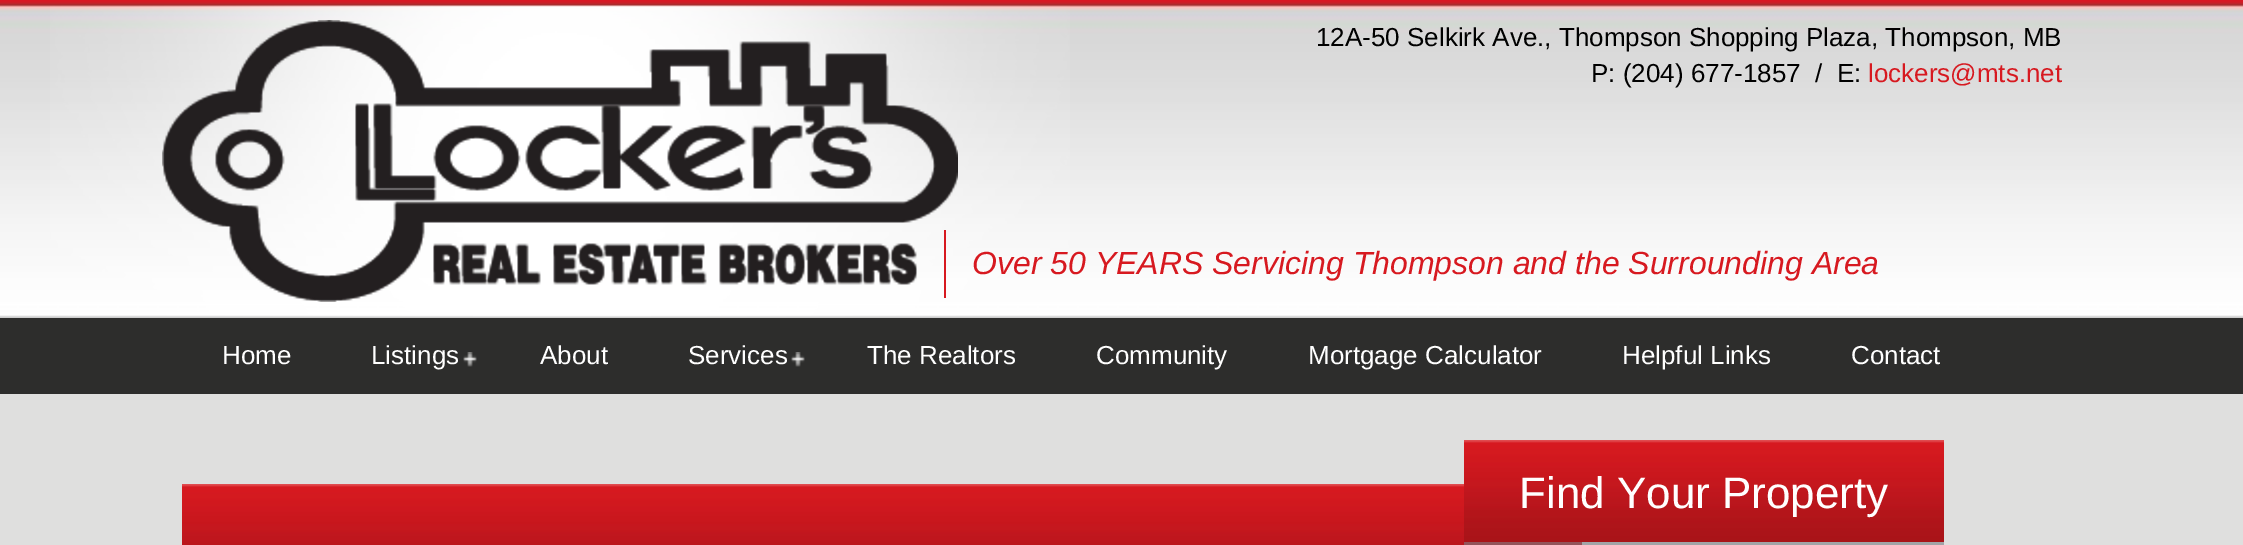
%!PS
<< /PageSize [2243 545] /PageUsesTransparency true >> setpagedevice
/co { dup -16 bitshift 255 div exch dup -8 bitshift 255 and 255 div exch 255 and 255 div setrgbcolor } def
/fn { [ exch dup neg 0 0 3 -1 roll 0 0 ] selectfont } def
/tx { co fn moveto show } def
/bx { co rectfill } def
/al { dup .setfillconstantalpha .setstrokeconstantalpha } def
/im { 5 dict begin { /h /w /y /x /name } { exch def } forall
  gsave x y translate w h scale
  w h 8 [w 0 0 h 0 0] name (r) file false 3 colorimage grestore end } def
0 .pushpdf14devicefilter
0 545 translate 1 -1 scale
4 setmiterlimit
0 0 2243 545 16#DFDFDE bx
(media/1.raw) 0 0 2243 318 im
(media/2.raw) 50 5 1020 312 im
(media/3.raw) 162 20 796 282 im
944 230 2 68 16#D71920 bx
0 318 2243 76 16#2D2D2C bx
(media/4.raw) 463 352 14 15 im
(media/4.raw) 791 352 14 15 im
(media/6.raw) 182 484 1400 61 im
0.6 al
1464 542 480 3 16#797D83 bx
1 al
(media/5.raw) 1464 440 480 102 im
(12A-50 Selkirk Ave., Thompson Shopping Plaza, Thompson, MB) 1316 46 /LiberationSans-Regular 26 16#000000 tx
(P: \(204\) 677-1857  /  E:) 1591 82 /LiberationSans-Regular 26 16#000000 tx
(lockers@mts.net) 1868 82 /LiberationSans-Regular 26 16#D71920 tx
(Over 50 YEARS Servicing Thompson and the Surrounding Area) 972 274 /LiberationSans-Italic 32 16#D71920 tx
(Home) 222 364 /LiberationSans-Regular 26 16#FFFFFF tx
(Listings) 371 364 /LiberationSans-Regular 26 16#FFFFFF tx
(About) 540 364 /LiberationSans-Regular 26 16#FFFFFF tx
(Services) 688 364 /LiberationSans-Regular 26 16#FFFFFF tx
(The Realtors) 867 364 /LiberationSans-Regular 26 16#FFFFFF tx
(Community) 1096 364 /LiberationSans-Regular 26 16#FFFFFF tx
(Mortgage Calculator) 1308 364 /LiberationSans-Regular 26 16#FFFFFF tx
(Helpful Links) 1622 364 /LiberationSans-Regular 26 16#FFFFFF tx
(Contact) 1851 364 /LiberationSans-Regular 26 16#FFFFFF tx
(Find Your Property) 1519 508 /LiberationSans-Regular 44 16#FFFFFF tx
.poppdf14devicefilter showpage
